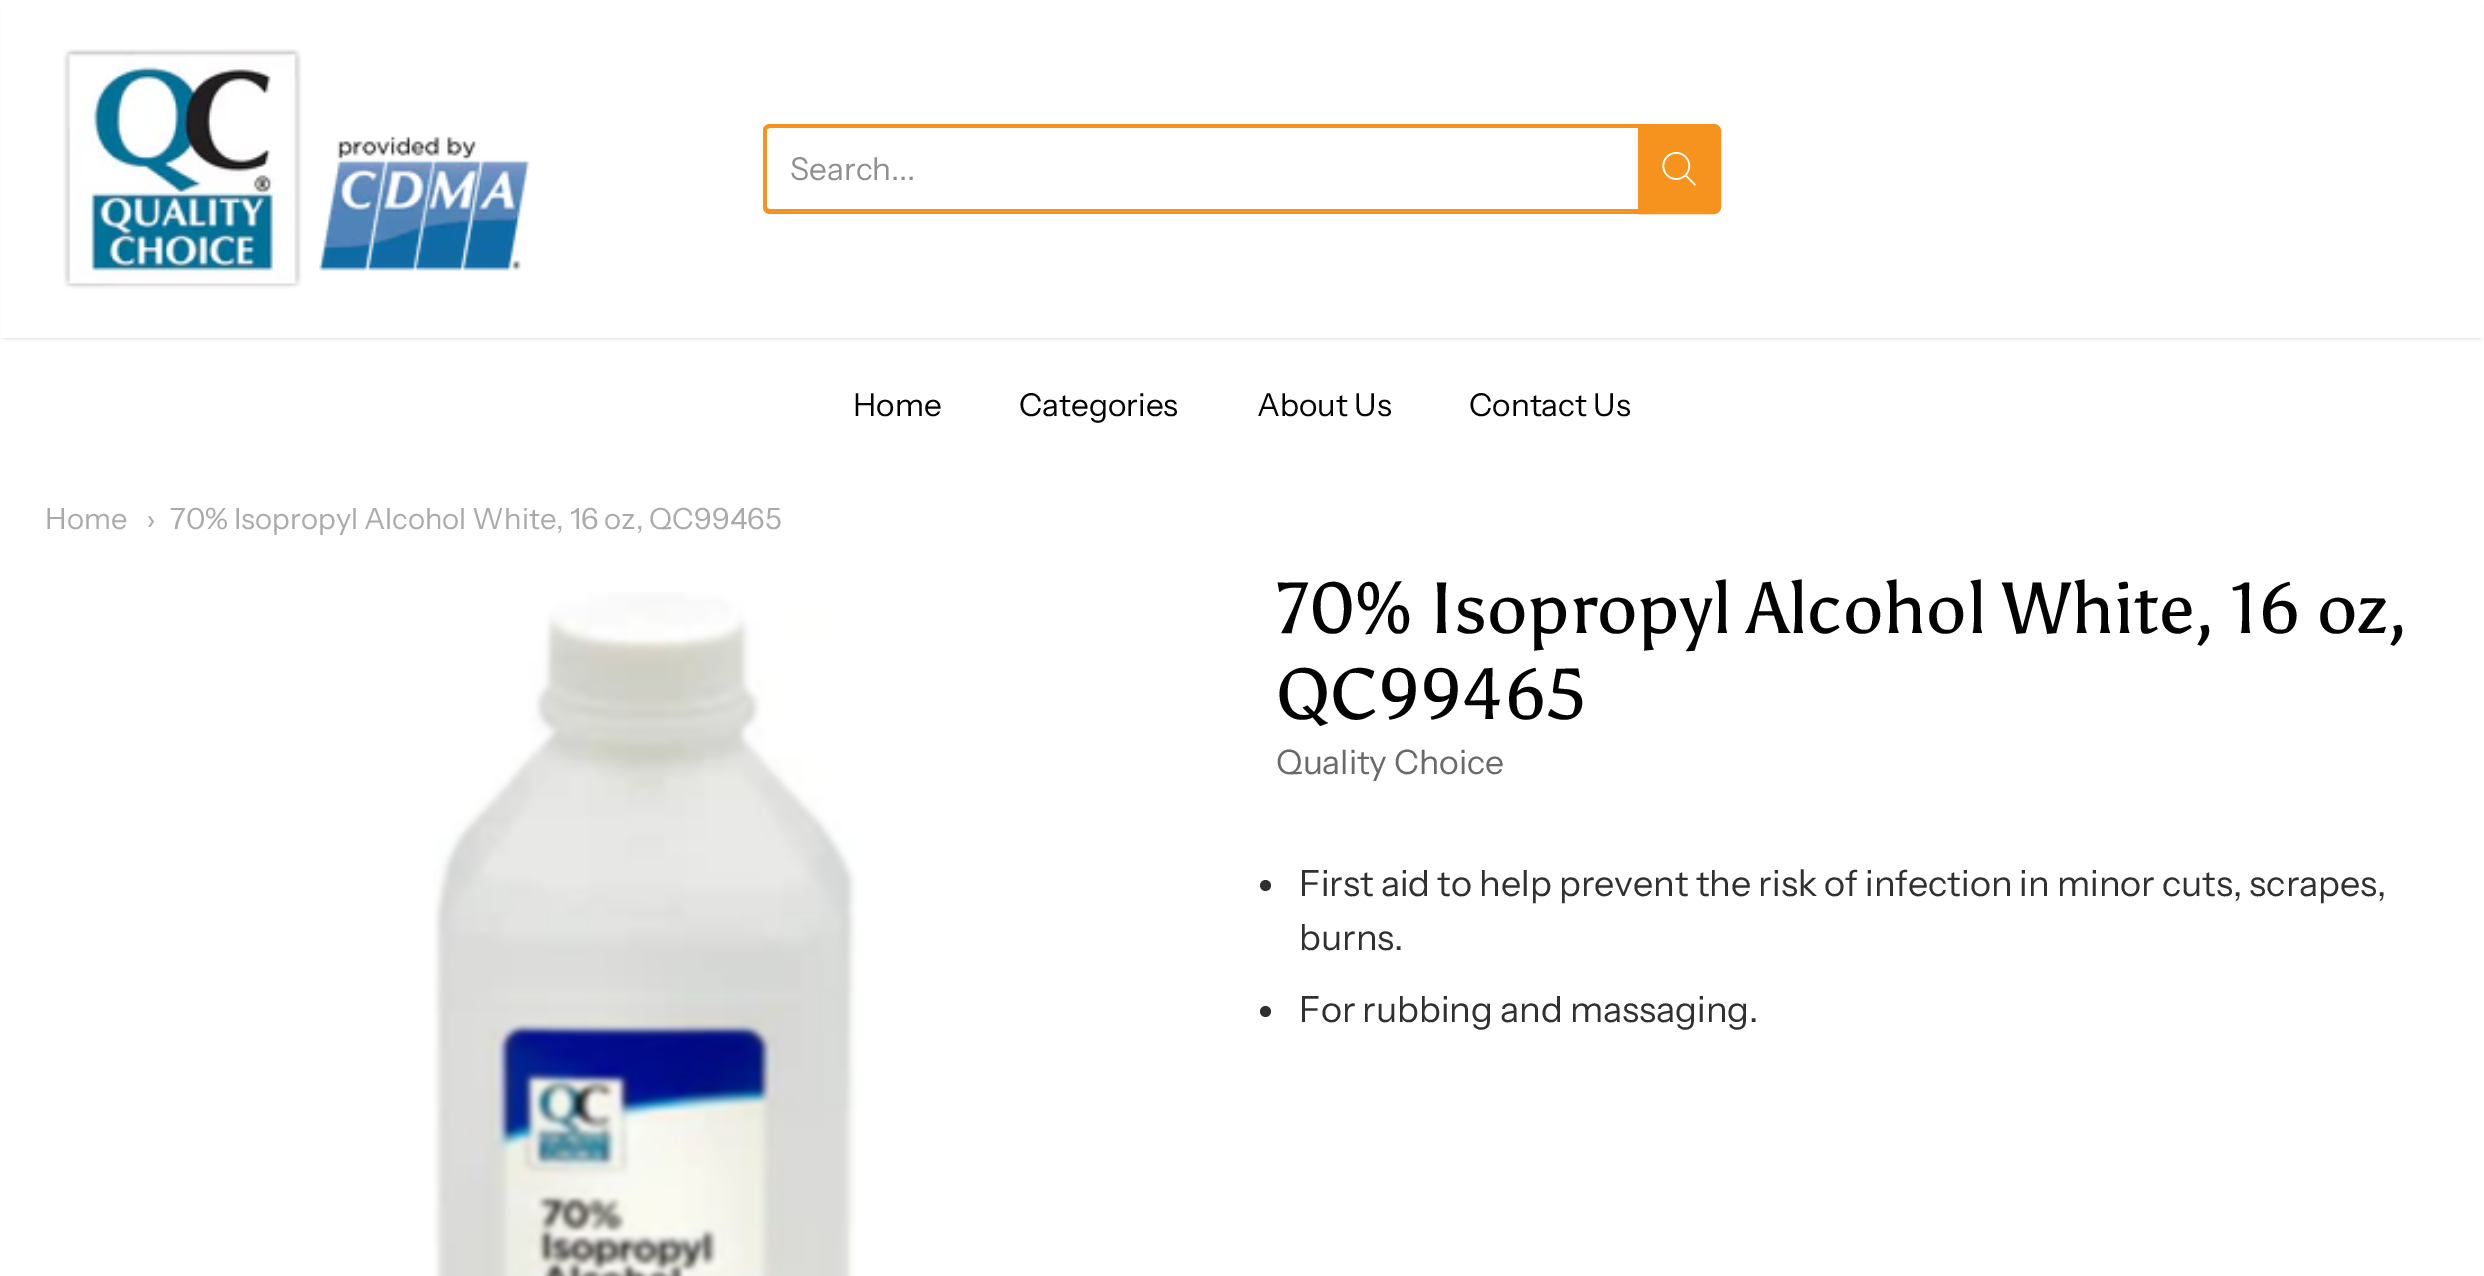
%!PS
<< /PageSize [2484 1276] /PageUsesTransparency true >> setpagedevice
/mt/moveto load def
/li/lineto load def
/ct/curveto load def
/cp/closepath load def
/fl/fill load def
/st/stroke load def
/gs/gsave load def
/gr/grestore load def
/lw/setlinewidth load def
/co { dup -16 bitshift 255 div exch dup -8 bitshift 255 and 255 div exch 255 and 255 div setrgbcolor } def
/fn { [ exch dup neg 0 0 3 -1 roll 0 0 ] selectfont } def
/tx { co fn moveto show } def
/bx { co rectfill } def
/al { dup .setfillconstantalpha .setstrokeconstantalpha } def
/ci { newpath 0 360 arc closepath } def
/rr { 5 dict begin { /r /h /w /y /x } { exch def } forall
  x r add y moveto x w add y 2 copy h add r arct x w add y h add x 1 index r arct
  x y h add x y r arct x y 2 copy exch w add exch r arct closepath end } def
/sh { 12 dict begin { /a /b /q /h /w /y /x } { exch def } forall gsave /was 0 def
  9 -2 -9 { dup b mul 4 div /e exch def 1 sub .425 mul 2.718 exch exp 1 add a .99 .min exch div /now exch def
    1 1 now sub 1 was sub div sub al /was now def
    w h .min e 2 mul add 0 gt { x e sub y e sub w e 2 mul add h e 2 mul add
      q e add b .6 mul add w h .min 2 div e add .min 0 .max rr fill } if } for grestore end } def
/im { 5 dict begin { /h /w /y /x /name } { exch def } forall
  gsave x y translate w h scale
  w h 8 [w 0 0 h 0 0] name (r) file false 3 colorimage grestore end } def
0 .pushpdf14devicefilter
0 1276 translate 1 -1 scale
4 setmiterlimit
0 0 2484 1276 16#FFFFFF bx
16#000000 co
5 9 2475 329 0 2 .2 sh
2 6 2481 332 16#FFFFFF bx
(media/1.raw) 63 49 467 240 im
16#F6921E co
770 124 mt 1638 124 li 1638 214 li 770 214 li 766 214 763 211 763 207 ct 763 130 li 763 127 766 124 770 124 ct cp 770 128 mt 1638 128 li 1638 209 li 770 209 li 768 209 767 208 767 207 ct 767 130 li 767 129 768 128 770 128 ct cp eofill
1640.5 126.5 mt 1714 126.5 li 1716.5 126.5 1718.5 128.5 1718.5 131 ct 1718.5 207 li 1718.5 209.5 1716.5 211.5 1714 211.5 ct 1640.5 211.5 li cp gs fl gr
5 lw
st
(media/2.raw) 1662 152 34 34 im
(media/3.raw) 433 592 424 684 im
16#303030 co
1265.5 885.5 5.5 ci fl
1265.5 1011.5 5.5 ci fl
(Search...) 790 180 /InstrumentSans-Regular 31.5 16#8F8F8F tx
(Home) 853 416 /InstrumentSans-Regular 31.5 16#030303 tx
(Categories) 1019 416 /InstrumentSans-Regular 31.5 16#030303 tx
(About Us) 1257 416 /InstrumentSans-Regular 31.5 16#030303 tx
(Contact Us) 1469 416 /InstrumentSans-Regular 31.5 16#030303 tx
(Home) 45 529 /InstrumentSans-Regular 29.25 16#A9AAAA tx
(›) 146 529 /InstrumentSans-Regular 29.25 16#A9AAAA tx
(70% Isopropyl Alcohol White, 16 oz, QC99465) 170 529 /InstrumentSans-Regular 29.25 16#A9AAAA tx
(70% Isopropyl Alcohol White, 16 oz,) 1276 633 /Asul-Regular 72 16#030303 tx
(QC99465) 1276 719 /Asul-Regular 72 16#030303 tx
(Quality Choice) 1276 774 /InstrumentSans-Regular 33.75 16#696969 tx
(First aid to help prevent the risk of infection in minor cuts, scrapes,) 1299 896 /InstrumentSans-Regular 36 16#303030 tx
(burns.) 1299 950 /InstrumentSans-Regular 36 16#303030 tx
(For rubbing and massaging.) 1299 1022 /InstrumentSans-Regular 36 16#303030 tx
.poppdf14devicefilter showpage
